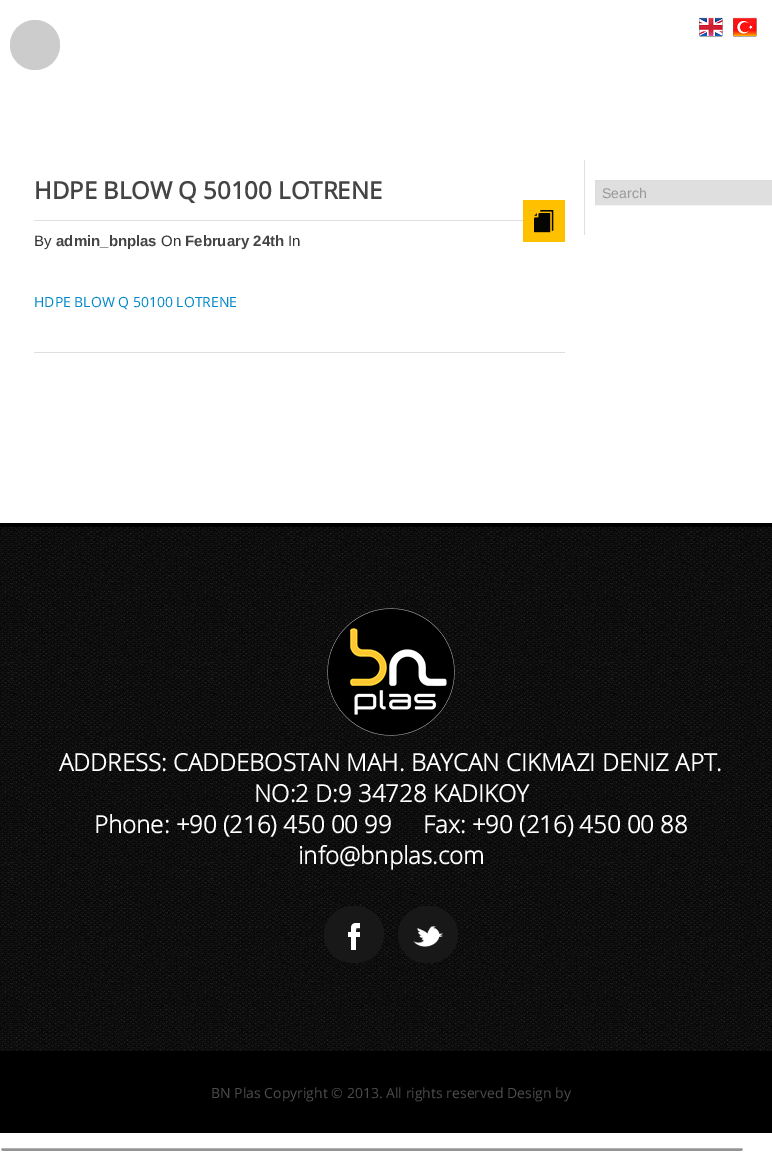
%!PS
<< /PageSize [772 1154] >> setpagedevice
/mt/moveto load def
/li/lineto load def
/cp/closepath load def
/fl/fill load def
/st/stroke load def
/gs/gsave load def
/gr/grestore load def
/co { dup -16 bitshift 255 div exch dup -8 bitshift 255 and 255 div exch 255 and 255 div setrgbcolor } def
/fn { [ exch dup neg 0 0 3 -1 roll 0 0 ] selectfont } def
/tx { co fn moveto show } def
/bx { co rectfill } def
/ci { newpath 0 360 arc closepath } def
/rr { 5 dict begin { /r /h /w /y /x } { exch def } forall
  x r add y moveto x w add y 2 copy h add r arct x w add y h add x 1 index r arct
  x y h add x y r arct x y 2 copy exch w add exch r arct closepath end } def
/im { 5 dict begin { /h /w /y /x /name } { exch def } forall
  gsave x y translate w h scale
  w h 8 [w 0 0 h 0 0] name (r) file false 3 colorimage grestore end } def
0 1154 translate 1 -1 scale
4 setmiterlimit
0 0 772 1154 16#FFFFFF bx
16#CCCCCC co
35 45 25 ci fl
(media/1.raw) 699 17 24 20 im
(media/2.raw) 733 17 24 20 im
34 220 489 1 16#DFDFDF bx
523 200 42 42 16#FFC000 bx
(media/3.raw) 534 210 20 23 im
34 352 531 1 16#DFDFDF bx
584 160 1 75 16#DFDFDF bx
595.5 180.5 mt 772.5 180.5 li 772.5 204.5 li 595.5 204.5 li cp gs fl gr
16#DDDDDD co
st
(media/4.raw) 0 527 772 524 im
0 523 772 4 16#000000 bx
0 1051 772 82 16#000000 bx
(media/5.raw) 327 608 128 128 im
16#181818 co
324 906 60 57 28.5 rr fl
398 906 60 57 28.5 rr fl
(media/6.raw) 348 923 12 27 im
(media/7.raw) 413 926 30 21 im
16#949494 co
.5 1147.5 743 4 2 rr gs fl gr
16#FFFFFF co
st
(HDPE BLOW Q 50100 LOTRENE) 34 199 /OpenSans-Bold 24 16#444444 tx
(By) 34 246 /LiberationSans-Regular 15 16#333333 tx
(admin_bnplas) 56 246 /LiberationSans-Bold 15 16#444444 tx
(On) 161 246 /LiberationSans-Regular 15 16#333333 tx
(February 24th) 185 246 /LiberationSans-Bold 15 16#444444 tx
(In) 288 246 /LiberationSans-Regular 15 16#333333 tx
(HDPE BLOW Q 50100 LOTRENE) 34 307 /OpenSans-Regular 14 16#0088CC tx
(Search) 602 198 /LiberationSans-Regular 14 16#999999 tx
(ADDRESS: CADDEBOSTAN MAH. BAYCAN CIKMAZI DENIZ APT.) 59 771 /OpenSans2-Bold 24 16#FFFFFF tx
(NO:2 D:9 34728 KADIKOY) 254 802 /OpenSans2-Bold 24 16#FFFFFF tx
(Phone: +90 \(216\) 450 00 99) 94 833 /OpenSans2-Bold 24 16#FFFFFF tx
(Fax: +90 \(216\) 450 00 88) 423 833 /OpenSans2-Bold 24 16#FFFFFF tx
(info@bnplas.com) 298 864 /OpenSans2-Bold 24 16#FFFFFF tx
(BN Plas Copyright © 2013. All rights reserved Design by) 211 1098 /OpenSans-Regular 14 16#4D4D4D tx
showpage
